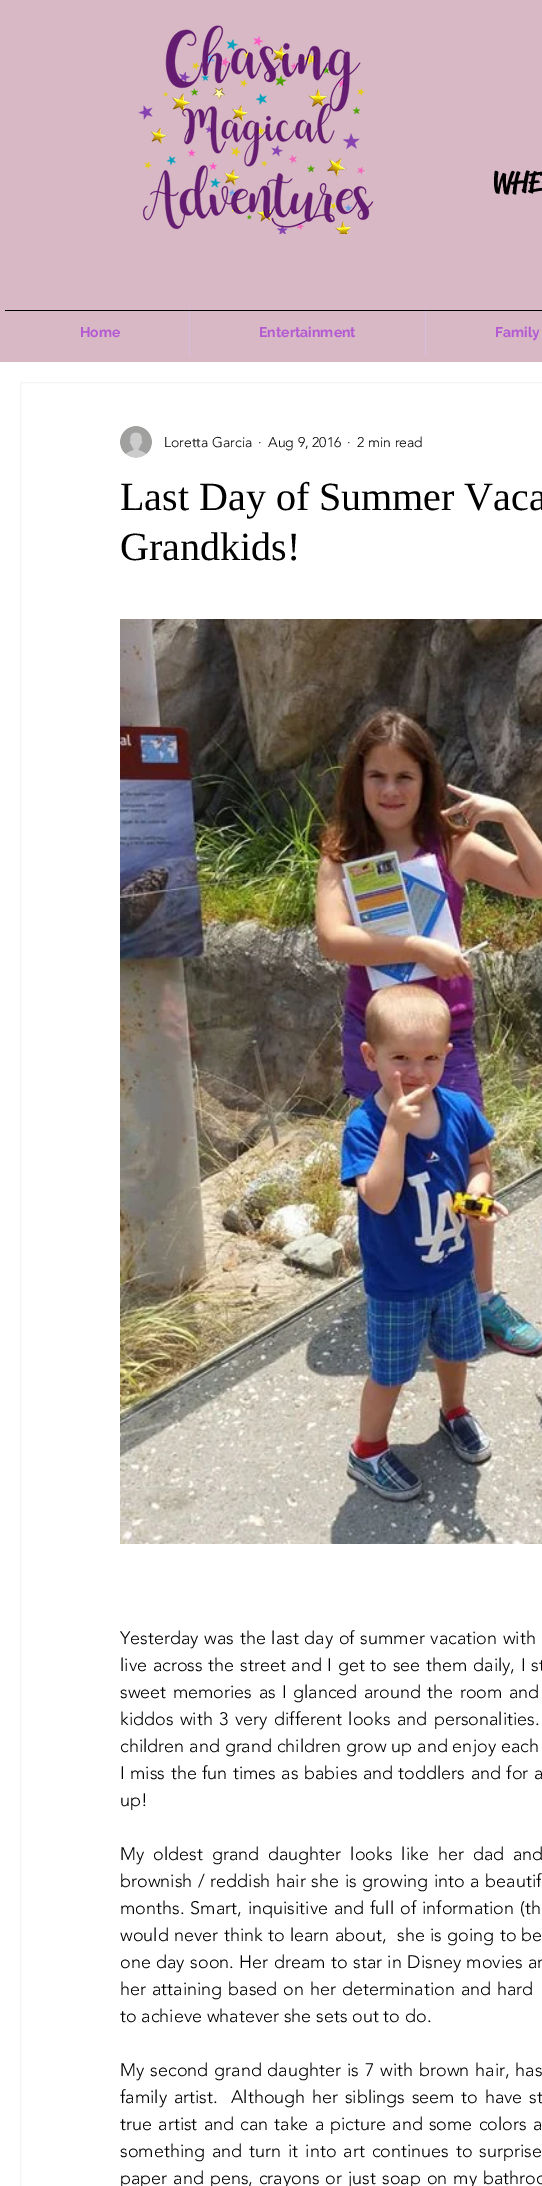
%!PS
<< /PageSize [542 2186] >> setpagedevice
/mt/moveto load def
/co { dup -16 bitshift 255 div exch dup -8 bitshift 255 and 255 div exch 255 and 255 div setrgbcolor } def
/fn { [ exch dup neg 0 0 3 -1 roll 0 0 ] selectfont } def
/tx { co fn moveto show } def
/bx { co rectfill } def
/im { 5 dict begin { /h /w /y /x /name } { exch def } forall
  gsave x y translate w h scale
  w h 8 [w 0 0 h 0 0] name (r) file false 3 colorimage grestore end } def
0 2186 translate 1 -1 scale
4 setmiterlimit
0 0 542 2186 16#D9B8C6 bx
(media/1.raw) 138 25 236 209 im
189 308 1 48 16#D8BDE2 bx
425 308 1 48 16#D8BDE2 bx
5 310 537 1 16#000000 bx
0 362 542 1824 16#FFFFFF bx
16#F5F5F5 co
20.5 382.5 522 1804 rectstroke
(media/2.raw) 120 426 32 32 im
(media/3.raw) 120 619 422 925 im
(WHE) 492 192 /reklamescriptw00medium-Medium 29 16#000000 tx
(Home) 80 337 /Raleway-Bold 14 16#B45AD3 tx
(Entertainment) 259 337 /Raleway-Bold 14 16#B45AD3 tx
(Family) 495 337 /Raleway-Bold 14 16#B45AD3 tx
(Loretta Garcia) 164 447 /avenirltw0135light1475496-Light 14 16#000000 tx
(·) 258 447 /avenirltw0135light1475496-Light 14 16#000000 tx
(Aug 9, 2016) 268 447 /avenirltw0135light1475496-Light 14 16#000000 tx
(·) 347 447 /avenirltw0135light1475496-Light 14 16#000000 tx
(2 min read) 357 447 /avenirltw0135light1475496-Light 14 16#000000 tx
(Last Day of Summer Vaca) 120 510 /LiberationSerif-Regular 40 16#000000 tx
(Grandkids!) 120 560 /LiberationSerif-Regular 40 16#000000 tx
/avenirltw0135light1475496-Light 18 fn
120 1644 mt 1 0 32 (Yesterday was the last day of summer vacation with) widthshow
120 1671 mt 1 0 32 (live across the street and I get to see them daily, I st) widthshow
120 1698 mt 1.75 0 32 (sweet memories as I glanced around the room and) widthshow
120 1725 mt 1.75 0 32 (kiddos with 3 very different looks and personalities.) widthshow
120 1752 mt .25 0 32 (children and grand children grow up and enjoy each) widthshow
120 1779 mt .75 0 32 (I miss the fun times as babies and toddlers and for a) widthshow
(up!) 120 1806 /avenirltw0135light1475496-Light 18 16#000000 tx
120 1860 mt 4.25 0 32 (My oldest grand daughter looks like her dad and) widthshow
120 1887 mt 1 0 32 (brownish / reddish hair she is growing into a beautif) widthshow
120 1914 mt 1.25 0 32 (months. Smart, inquisitive and full of information \(th) widthshow
120 1941 mt .6 0 32 (would never think to learn about,  she is going to be) widthshow
120 1968 mt .75 0 32 (one day soon. Her dream to star in Disney movies an) widthshow
120 1995 mt 1.25 0 32 (her attaining based on her determination and hard) widthshow
(to achieve whatever she sets out to do.) 120 2022 /avenirltw0135light1475496-Light 18 16#000000 tx
120 2076 mt 1.25 0 32 (My second grand daughter is 7 with brown hair, has) widthshow
120 2103 mt 2 0 32 (family artist.  Although her siblings seem to have st) widthshow
120 2130 mt 1.5 0 32 (true artist and can take a picture and some colors a) widthshow
120 2157 mt 2.25 0 32 (something and turn it into art continues to surprise) widthshow
120 2184 mt 1.25 0 32 (paper and pens, crayons or just soap on my bathroo) widthshow
showpage
